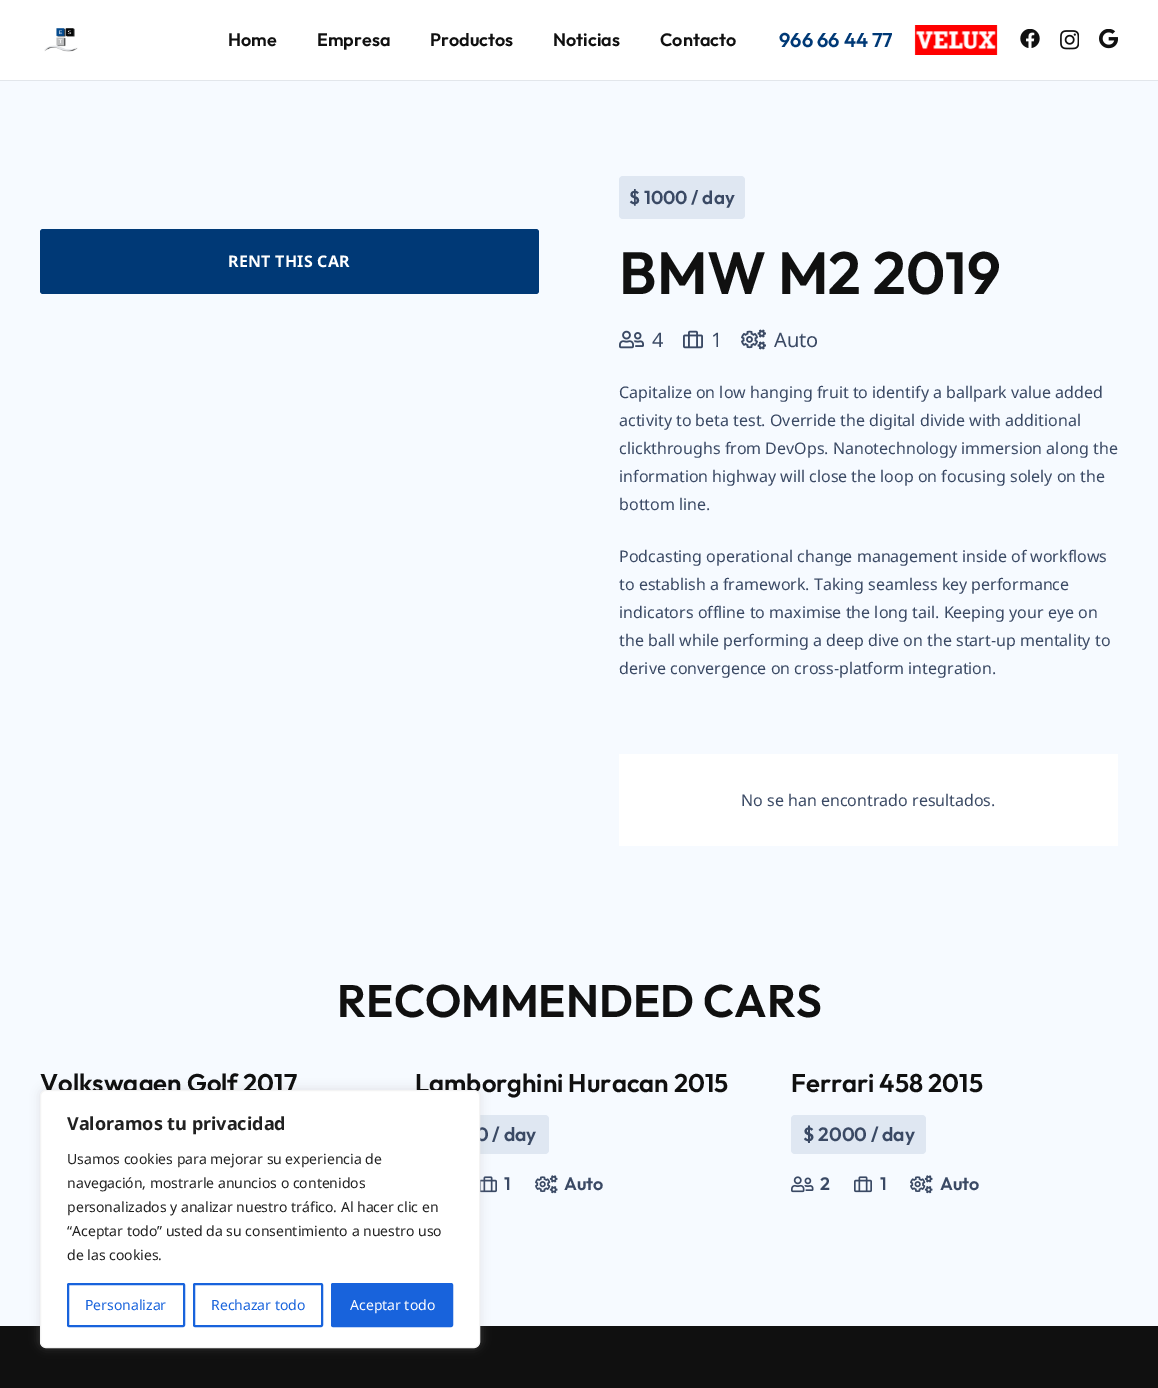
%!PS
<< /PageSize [1158 1388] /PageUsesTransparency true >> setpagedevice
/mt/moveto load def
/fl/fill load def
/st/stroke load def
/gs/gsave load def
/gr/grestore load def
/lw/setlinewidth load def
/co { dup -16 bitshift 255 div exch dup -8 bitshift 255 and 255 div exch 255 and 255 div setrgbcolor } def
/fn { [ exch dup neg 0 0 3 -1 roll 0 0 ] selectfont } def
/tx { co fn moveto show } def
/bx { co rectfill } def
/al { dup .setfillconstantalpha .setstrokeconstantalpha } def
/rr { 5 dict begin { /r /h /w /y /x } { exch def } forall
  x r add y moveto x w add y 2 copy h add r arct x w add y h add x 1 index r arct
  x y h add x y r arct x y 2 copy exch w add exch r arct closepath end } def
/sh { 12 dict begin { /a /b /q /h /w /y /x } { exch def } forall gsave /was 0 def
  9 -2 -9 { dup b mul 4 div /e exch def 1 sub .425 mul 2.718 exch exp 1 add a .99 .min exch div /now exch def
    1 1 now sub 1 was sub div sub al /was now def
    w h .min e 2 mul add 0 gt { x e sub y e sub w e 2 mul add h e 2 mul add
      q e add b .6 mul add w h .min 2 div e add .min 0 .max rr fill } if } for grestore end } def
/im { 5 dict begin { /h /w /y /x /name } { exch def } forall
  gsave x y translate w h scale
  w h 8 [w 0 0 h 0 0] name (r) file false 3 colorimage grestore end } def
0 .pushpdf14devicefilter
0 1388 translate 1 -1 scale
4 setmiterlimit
0 0 1158 1388 16#F6FAFF bx
0 80 1158 1 16#E2E6EB bx
0 0 1158 80 16#FFFFFF bx
(media/1.raw) 44 28 34 24 im
(media/2.raw) 914 25 84 30 im
(media/3.raw) 1020 29 20 19 im
(media/4.raw) 1060 30 19 20 im
(media/5.raw) 1099 29 19 20 im
16#003976 co
40 229 499 65 3 rr fl
16#DFE7F2 co
619 176 126 43 4 rr fl
(media/6.raw) 619 330 25 19 im
(media/7.raw) 683 330 20 19 im
(media/8.raw) 741 329 25 21 im
619 754 499 92 16#FFFFFF bx
16#DFE7F2 co
415 1115 134 39 4 rr fl
(media/9.raw) 480 1176 17 17 im
(media/10.raw) 535 1175 23 19 im
791 1115 135 39 4 rr fl
(media/11.raw) 791 1176 23 17 im
(media/12.raw) 854 1176 18 17 im
(media/10.raw) 910 1175 23 19 im
0 1326 1158 62 16#101010 bx
16#ACABAB co
40 1089 440 258 6 5 .3 sh
(Home) 228 46 /Outfit-Thin 18 16#101010 tx
(Empresa) 317 46 /Outfit-Thin 18 16#101010 tx
(Productos) 430 46 /Outfit-Thin 18 16#101010 tx
(Noticias) 553 46 /Outfit-Thin 18 16#101010 tx
(Contacto) 660 46 /Outfit-Thin 18 16#101010 tx
(966 66 44 77) 779 47 /Outfit-Thin 20 16#003976 tx
/NotoSans-Bold 16 fn
16#FFFFFF co
228 267 mt .25 0 (RENT THIS CAR) ashow
($ 1000 / day) 629 204 /Outfit-Thin 18.75 16#3A4964 tx
(BMW M2 2019) 619 294 /Outfit-Thin 59.5 16#101010 tx
(4) 652 347 /NotoSans-Regular 20 16#3A4964 tx
(1) 711 347 /NotoSans-Regular 20 16#3A4964 tx
(Auto) 774 347 /NotoSans-Regular 20 16#3A4964 tx
(Capitalize on low hanging fruit to identify a ballpark value added) 619 398 /NotoSans-Regular 16 16#3A4964 tx
(activity to beta test. Override the digital divide with additional) 619 426 /NotoSans-Regular 16 16#3A4964 tx
(clickthroughs from DevOps. Nanotechnology immersion along the) 619 454 /NotoSans-Regular 16 16#3A4964 tx
(information highway will close the loop on focusing solely on the) 619 482 /NotoSans-Regular 16 16#3A4964 tx
(bottom line.) 619 510 /NotoSans-Regular 16 16#3A4964 tx
(Podcasting operational change management inside of workflows) 619 562 /NotoSans-Regular 16 16#3A4964 tx
(to establish a framework. Taking seamless key performance) 619 590 /NotoSans-Regular 16 16#3A4964 tx
(indicators offline to maximise the long tail. Keeping your eye on) 619 618 /NotoSans-Regular 16 16#3A4964 tx
(the ball while performing a deep dive on the start-up mentality to) 619 646 /NotoSans-Regular 16 16#3A4964 tx
(derive convergence on cross-platform integration.) 619 674 /NotoSans-Regular 16 16#3A4964 tx
(No se han encontrado resultados.) 741 806 /NotoSans-Regular 16 16#3A4964 tx
(RECOMMENDED CARS) 337 1017 /Outfit-Thin 45.5 16#101010 tx
(Volkswagen Golf 2017) 40 1092 /Outfit-Thin 25.6 16#101010 tx
(Lamborghini Huracan 2015) 415 1092 /Outfit-Thin 25.6 16#101010 tx
(0 / day) 476 1141 /Outfit-Thin 19.25 16#3A4964 tx
(1) 504 1190 /Outfit-Thin 18 16#3A4964 tx
(Auto) 564 1190 /Outfit-Thin 18 16#3A4964 tx
(Ferrari 458 2015) 791 1092 /Outfit-Thin 25.6 16#101010 tx
($ 2000 / day) 803 1141 /Outfit-Thin 19.25 16#3A4964 tx
(2) 820 1190 /Outfit-Thin 18 16#3A4964 tx
(1) 880 1190 /Outfit-Thin 18 16#3A4964 tx
(Auto) 940 1190 /Outfit-Thin 18 16#3A4964 tx
16#FFFFFF co
40.5 1090.5 439 257 5.5 rr gs fl gr
16#F4F4F4 co
st
(Valoramos tu privacidad) 67 1130 /NotoSans-Bold 18 16#212121 tx
(Usamos cookies para mejorar su experiencia de) 67 1164 /NotoSans-Regular 14 16#212121 tx
(navegación, mostrarle anuncios o contenidos) 67 1188 /NotoSans-Regular 14 16#212121 tx
(personalizados y analizar nuestro tráfico. Al hacer clic en) 67 1212 /NotoSans-Regular 14 16#212121 tx
(“Aceptar todo” usted da su consentimiento a nuestro uso) 67 1236 /NotoSans-Regular 14 16#212121 tx
(de las cookies.) 67 1260 /NotoSans-Regular 14 16#212121 tx
16#1863DC co
2 lw
68 1284 116 42 1 rr st
(Personalizar) 85 1310 /NotoSans-Regular 14 16#1863DC tx
194 1284 128 42 1 rr st
(Rechazar todo) 211 1310 /NotoSans-Regular 14 16#1863DC tx
332 1284 120 42 1 rr gs fl gr
st
(Aceptar todo) 350 1310 /NotoSans-Regular 14 16#FFFFFF tx
.poppdf14devicefilter showpage
